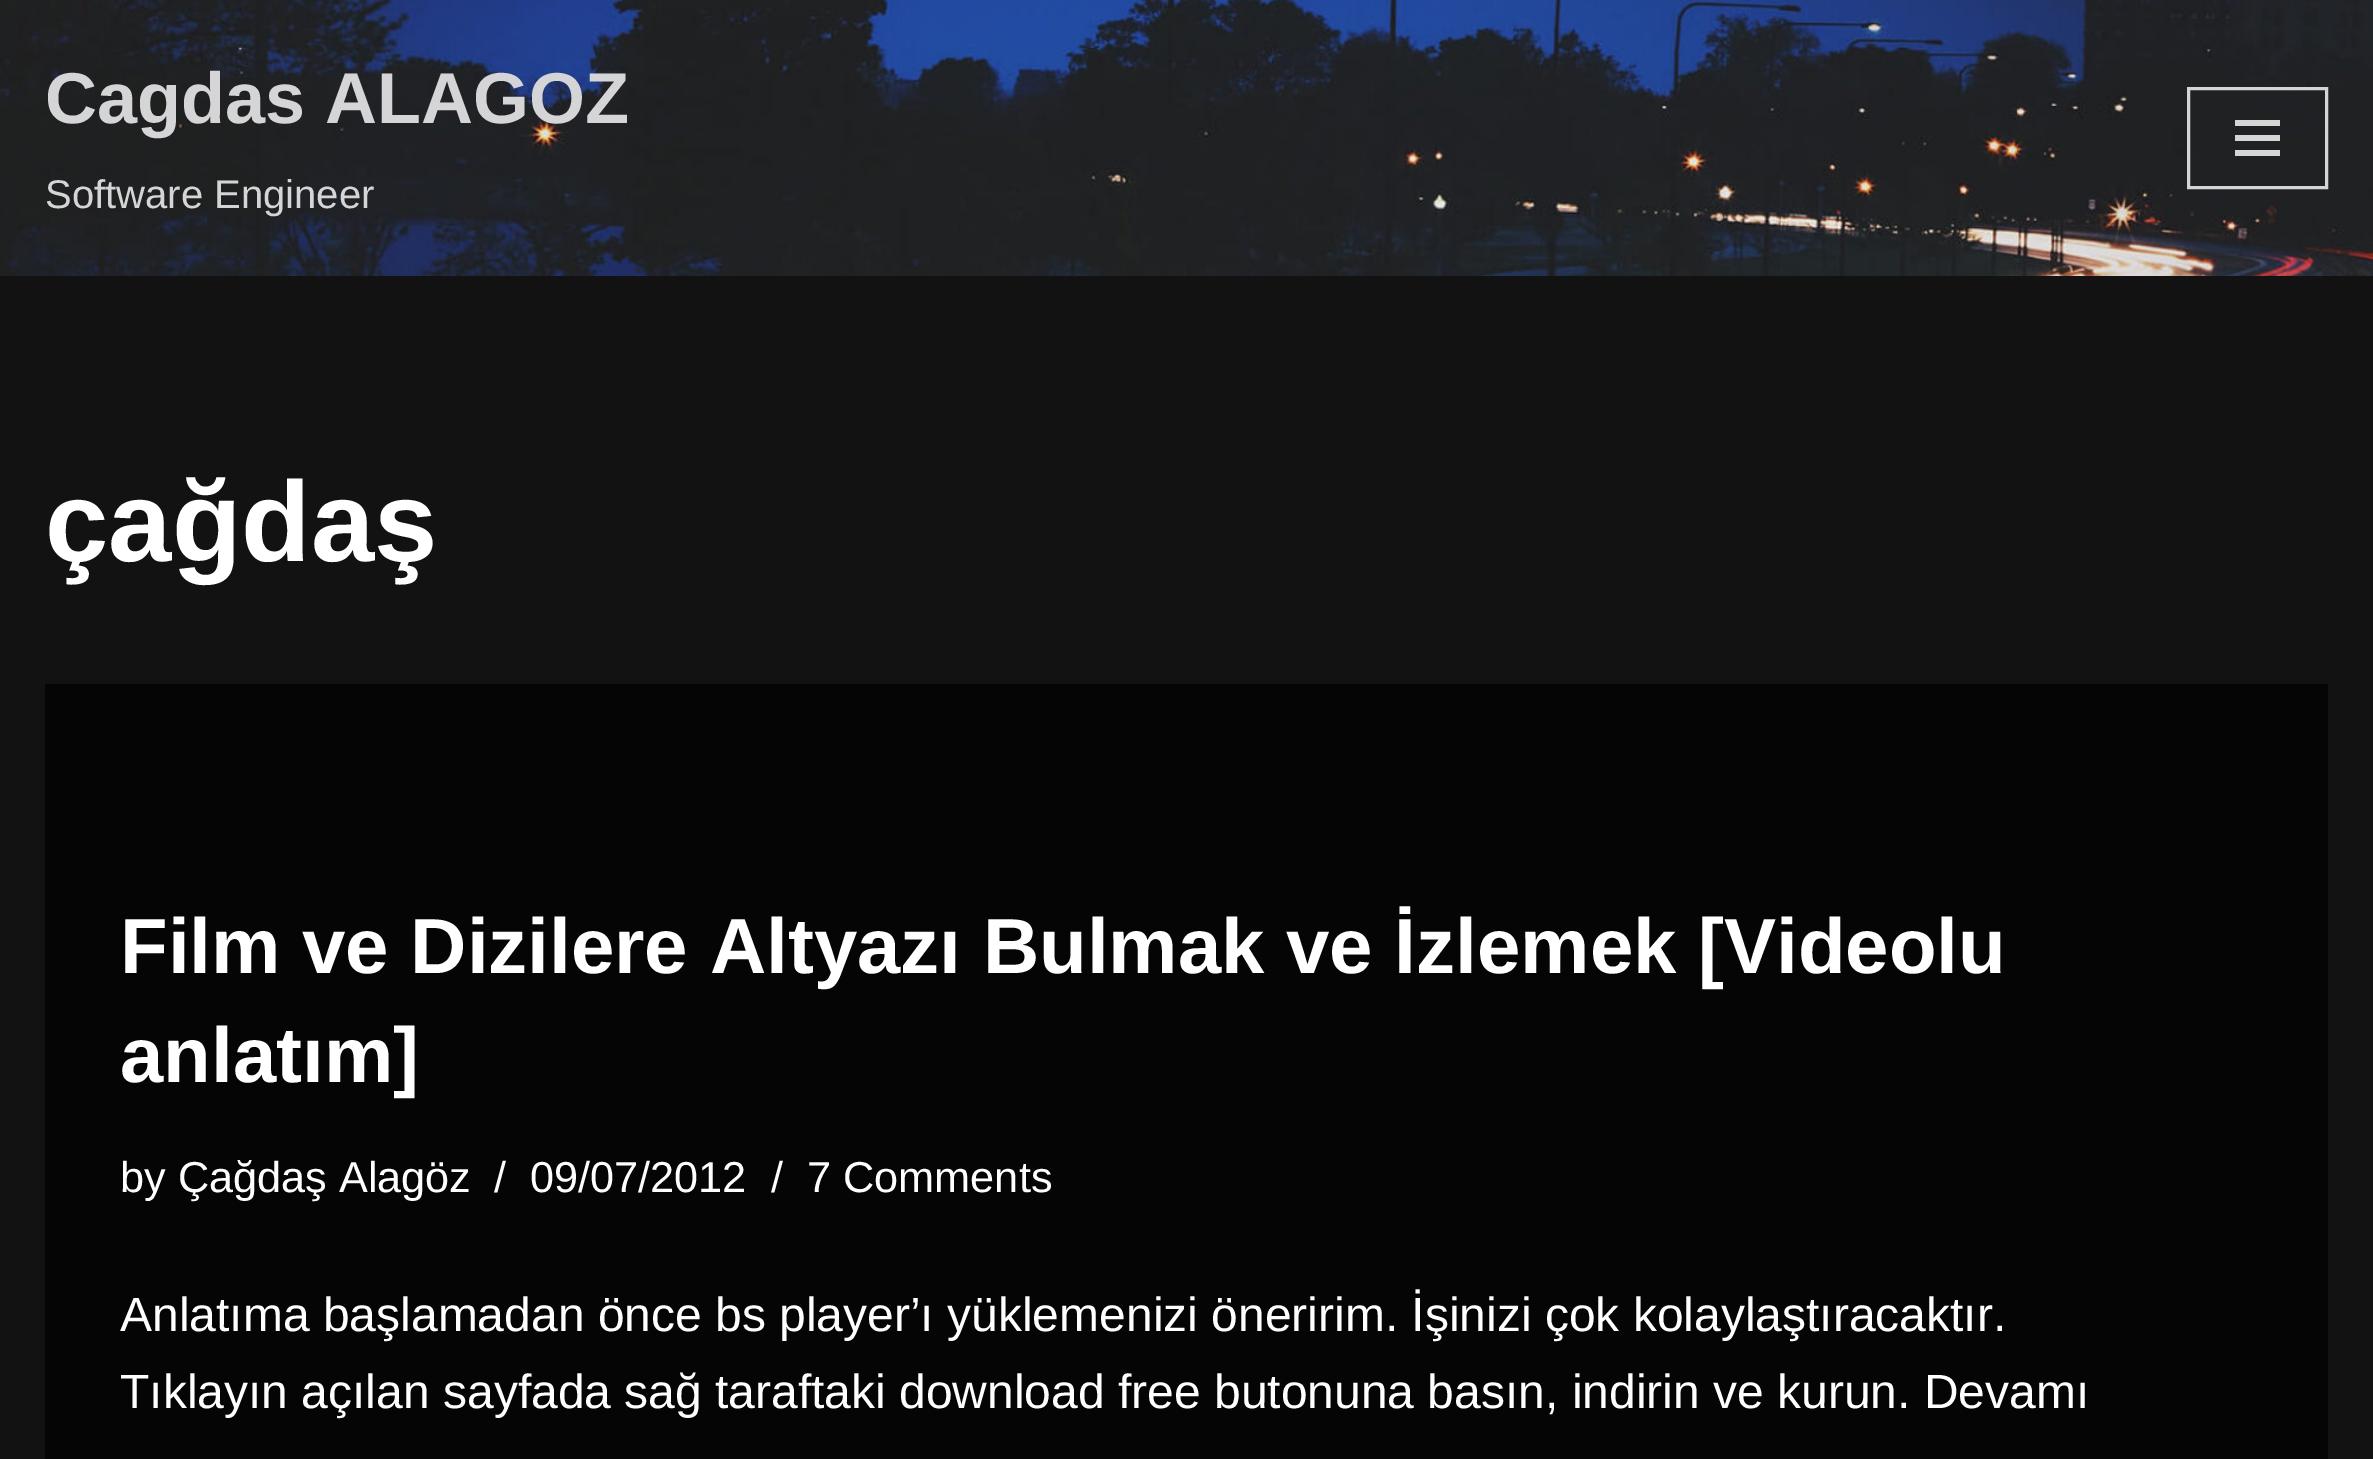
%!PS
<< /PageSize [2373 1459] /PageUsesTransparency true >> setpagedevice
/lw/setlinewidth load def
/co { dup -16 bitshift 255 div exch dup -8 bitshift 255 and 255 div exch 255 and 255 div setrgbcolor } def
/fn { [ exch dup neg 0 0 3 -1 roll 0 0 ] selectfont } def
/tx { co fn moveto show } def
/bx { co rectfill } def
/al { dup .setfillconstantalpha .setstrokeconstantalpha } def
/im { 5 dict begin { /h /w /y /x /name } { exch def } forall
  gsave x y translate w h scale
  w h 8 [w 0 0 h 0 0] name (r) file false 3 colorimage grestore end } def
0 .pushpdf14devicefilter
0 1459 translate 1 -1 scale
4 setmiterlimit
0 0 2373 1459 16#121212 bx
(media/1.raw) 0 0 2373 276 im
0.81 al
16#FFFFFF co
3 lw
2188.5 88.5 138 99 rectstroke
2235 120 45 6 16#FFFFFF bx
2235 135 45 6 16#FFFFFF bx
1 al
2235 150 45 6 16#D5D5D5 bx
45 684 2283 775 16#050505 bx
(Cagdas ALAGOZ) 45 123 /LiberationSans-Bold 72 16#D5D5D7 tx
(Software Engineer) 45 208 /LiberationSans-Regular 40 16#D5D5D7 tx
(çağdaş) 45 561 /LiberationSans-Bold 114 16#FFFFFF tx
(Film ve Dizilere Altyazı Bulmak ve İzlemek [Videolu) 120 973 /LiberationSans-Bold 78 16#FFFFFF tx
(anlatım]) 120 1082 /LiberationSans-Bold 78 16#FFFFFF tx
(by Çağdaş Alagöz) 120 1192 /LiberationSans-Regular 43.25 16#FFFFFF tx
(/) 494 1192 /LiberationSans-Regular 43.25 16#FFFFFF tx
(09/07/2012) 530 1192 /LiberationSans-Regular 43.25 16#FFFFFF tx
(/) 771 1192 /LiberationSans-Regular 43.25 16#FFFFFF tx
(7 Comments) 807 1192 /LiberationSans-Regular 43.25 16#FFFFFF tx
(Anlatıma başlamadan önce bs player’ı yüklemenizi öneririm. İşinizi çok kolaylaştıracaktır.) 120 1331 /LiberationSans-Regular 48 16#FFFFFF tx
(Tıklayın açılan sayfada sağ taraftaki download free butonuna basın, indirin ve kurun. Devamı) 120 1408 /LiberationSans-Regular 48 16#FFFFFF tx
.poppdf14devicefilter showpage
